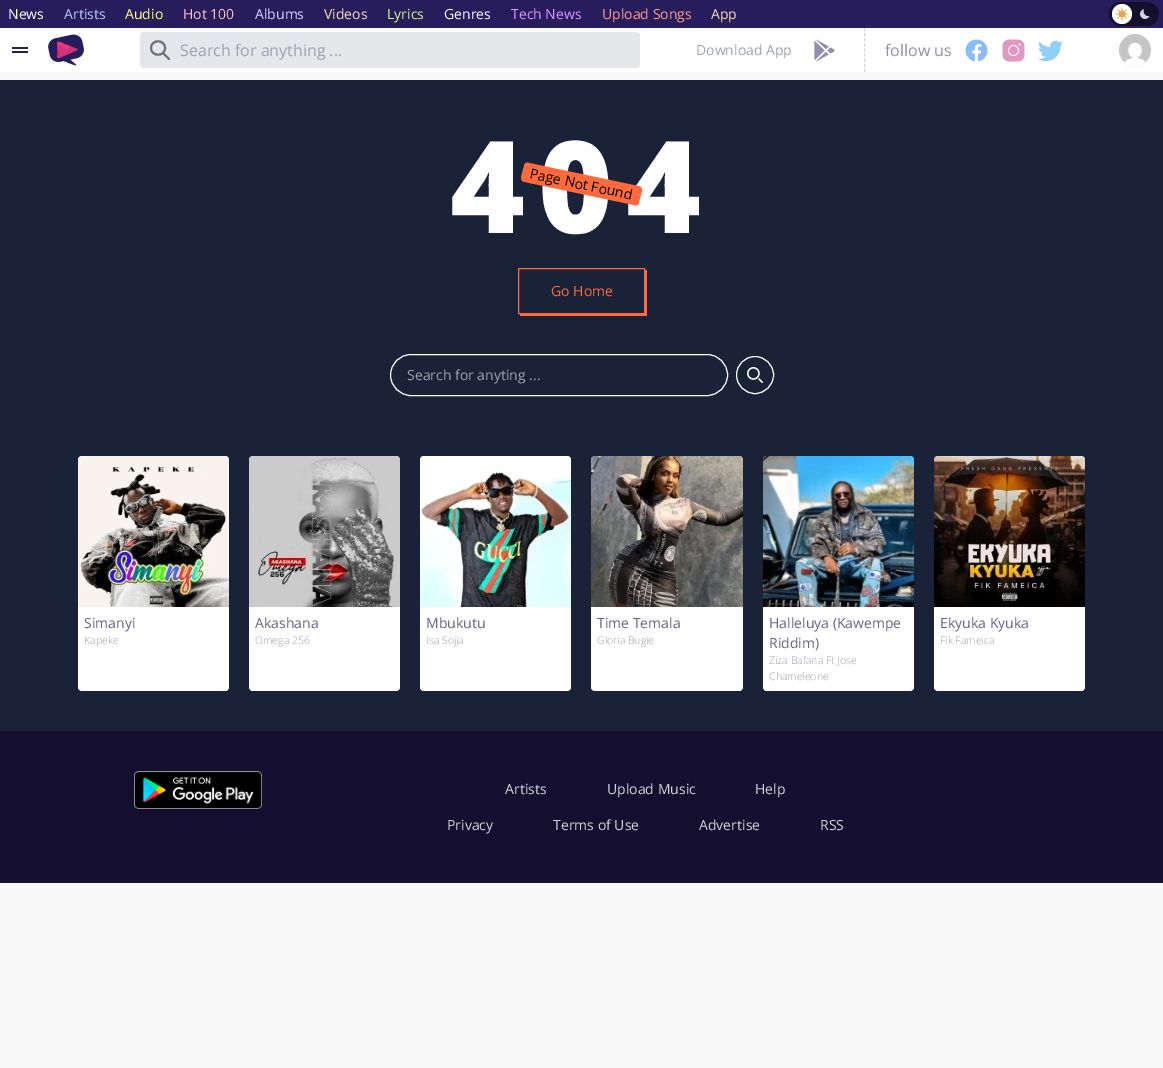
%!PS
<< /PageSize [1163 1068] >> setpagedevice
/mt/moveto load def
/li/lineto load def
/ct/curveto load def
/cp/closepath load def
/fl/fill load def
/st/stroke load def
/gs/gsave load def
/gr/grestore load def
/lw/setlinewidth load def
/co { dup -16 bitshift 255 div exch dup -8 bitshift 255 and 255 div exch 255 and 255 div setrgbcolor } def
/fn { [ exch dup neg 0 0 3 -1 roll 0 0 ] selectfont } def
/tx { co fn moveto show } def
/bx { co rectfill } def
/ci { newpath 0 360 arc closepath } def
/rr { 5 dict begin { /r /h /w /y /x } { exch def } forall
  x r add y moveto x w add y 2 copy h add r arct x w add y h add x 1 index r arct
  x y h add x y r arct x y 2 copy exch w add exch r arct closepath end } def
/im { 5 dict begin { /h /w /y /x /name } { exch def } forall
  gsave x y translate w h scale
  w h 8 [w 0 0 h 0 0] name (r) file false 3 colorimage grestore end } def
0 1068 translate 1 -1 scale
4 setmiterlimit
0 0 1163 1068 16#F9F9F9 bx
0 28 1163 44 16#FFFFFF bx
0 0 1163 28 16#281D5C bx
16#140F2E co
1109 2 50 24 12 rr fl
16#FFFFFF co
1122 14 10 ci fl
(media/1.raw) 1115 7 14 14 im
(media/2.raw) 1140 9 10 10 im
(media/3.raw) 12 47 16 6 im
(media/4.raw) 48 34 36 32 im
16#E5E7EB co
140 32 500 36 4 rr fl
16#6B7280 co
2 lw
1 setlinecap
1 setlinejoin
169 59 mt 163 53 li 165 48 mt 165 57 151 57 151 48 ct 151 39 165 39 165 48 ct cp st
(media/5.raw) 814 39 21 23 im
16#D1D5DB co
1 lw
0 setlinecap
0 setlinejoin
[3 2.12] 0 setdash
864.5 28 mt 864.5 72 li st
(media/6.raw) 965 39 23 23 im
(media/7.raw) 1002 39 23 23 im
(media/8.raw) 1038 40 25 22 im
(media/9.raw) 1119 34 32 33 im
0 80 1163 651 16#1A2238 bx
520 270 127 46 16#FF6A3D bx
520 270 124 43 16#1A2238 bx
16#FF6A3D co
[] 0 setdash
518.5 268.5 126 45 rectstroke
16#FFFFFF co
390.5 354.5 337 41 20.5 rr st
755 375 18.5 ci st
(media/10.raw) 747 367 16 16 im
78 456 151 235 4 rr fl
(media/11.raw) 78 456 151 151 im
249 456 151 235 4 rr fl
(media/12.raw) 249 456 151 151 im
420 456 151 235 4 rr fl
(media/13.raw) 420 456 151 151 im
591 456 152 235 4 rr fl
(media/14.raw) 591 456 152 151 im
763 456 151 235 4 rr fl
(media/15.raw) 763 456 151 151 im
934 456 151 235 4 rr fl
(media/16.raw) 934 456 151 151 im
0 731 1163 152 16#140F2E bx
(media/17.raw) 134 771 128 38 im
(News) 8 19 /OpenSans-Regular 14 16#FFFFFF tx
(Artists) 64 19 /OpenSans-Regular 14 16#B1CCFF tx
(Audio) 125 19 /OpenSans-Regular 14 16#FFFF82 tx
(Hot 100) 183 19 /OpenSans-Regular 14 16#FBC1C1 tx
(Albums) 255 19 /OpenSans-Regular 14 16#D5D5FF tx
(Videos) 324 19 /OpenSans-Regular 14 16#F5DEB3 tx
(Lyrics) 387 19 /OpenSans-Regular 14 16#D0F78E tx
(Genres) 444 19 /OpenSans-Regular 14 16#FFFFFF tx
(Tech News) 511 19 /OpenSans-Regular 14 16#DB93FF tx
(Upload Songs) 602 19 /OpenSans-Regular 14 16#FF9A88 tx
(App) 711 19 /OpenSans-Regular 14 16#F5DEB3 tx
(Search for anything ...) 180 56 /OpenSans-Regular 16 16#9CA3AF tx
(Download App) 696 55 /OpenSans-Regular 14 16#9CA3AF tx
(follow us) 885 56 /OpenSans-Regular 16 16#948EAE tx
/OpenSans-ExtraBold 128 fn
16#FFFFFF co
450 233 mt 13 0 (404) ashow
16#FF6A3D co
529 163 mt 638 186 li 641 186 642 188 642 191 ct 639 202 li 639 205 636 206 634 205 ct 525 182 li 522 182 521 180 521 177 ct 524 166 li 524 163 527 162 529 163 ct cp fl
/OpenSans-Regular 14 fn
16#000000 co
gs 529 178 translate 12 rotate 0 0 mt (Page Not Found) show gr
(Go Home) 551 296 /OpenSans-Regular 14 16#FF6A3D tx
(Search for anyting ...) 407 380 /OpenSans-Regular 14 16#9CA3AF tx
(Simanyi) 84 628 /OpenSans-Regular 14 16#69618D tx
(Kapeke) 84 644 /OpenSans-Light 10.5 16#9CA3AF tx
(Akashana) 255 628 /OpenSans-Regular 14 16#69618D tx
(Omega 256) 255 644 /OpenSans-Light 10.5 16#9CA3AF tx
(Mbukutu) 426 628 /OpenSans-Regular 14 16#69618D tx
(Isa Sojja) 426 644 /OpenSans-Light 10.5 16#9CA3AF tx
(Time Temala) 597 628 /OpenSans-Regular 14 16#69618D tx
(Gloria Bugie) 597 644 /OpenSans-Light 10.5 16#9CA3AF tx
(Halleluya \(Kawempe) 769 628 /OpenSans-Regular 14 16#69618D tx
(Riddim\)) 769 648 /OpenSans-Regular 14 16#69618D tx
(Ziza Bafana Ft Jose) 769 664 /OpenSans-Light 10.5 16#9CA3AF tx
(Chameleone) 769 680 /OpenSans-Light 10.5 16#9CA3AF tx
(Ekyuka Kyuka) 940 628 /OpenSans-Regular 14 16#69618D tx
(Fik Fameica) 940 644 /OpenSans-Light 10.5 16#9CA3AF tx
(Artists) 505 794 /OpenSans-Regular 14 16#D1D5DB tx
(Upload Music) 607 794 /OpenSans-Regular 14 16#D1D5DB tx
(Help) 755 794 /OpenSans-Regular 14 16#D1D5DB tx
(Privacy) 447 830 /OpenSans-Regular 14 16#D1D5DB tx
(Terms of Use) 553 830 /OpenSans-Regular 14 16#D1D5DB tx
(Advertise) 699 830 /OpenSans-Regular 14 16#D1D5DB tx
(RSS) 820 830 /OpenSans-Regular 14 16#D1D5DB tx
showpage
